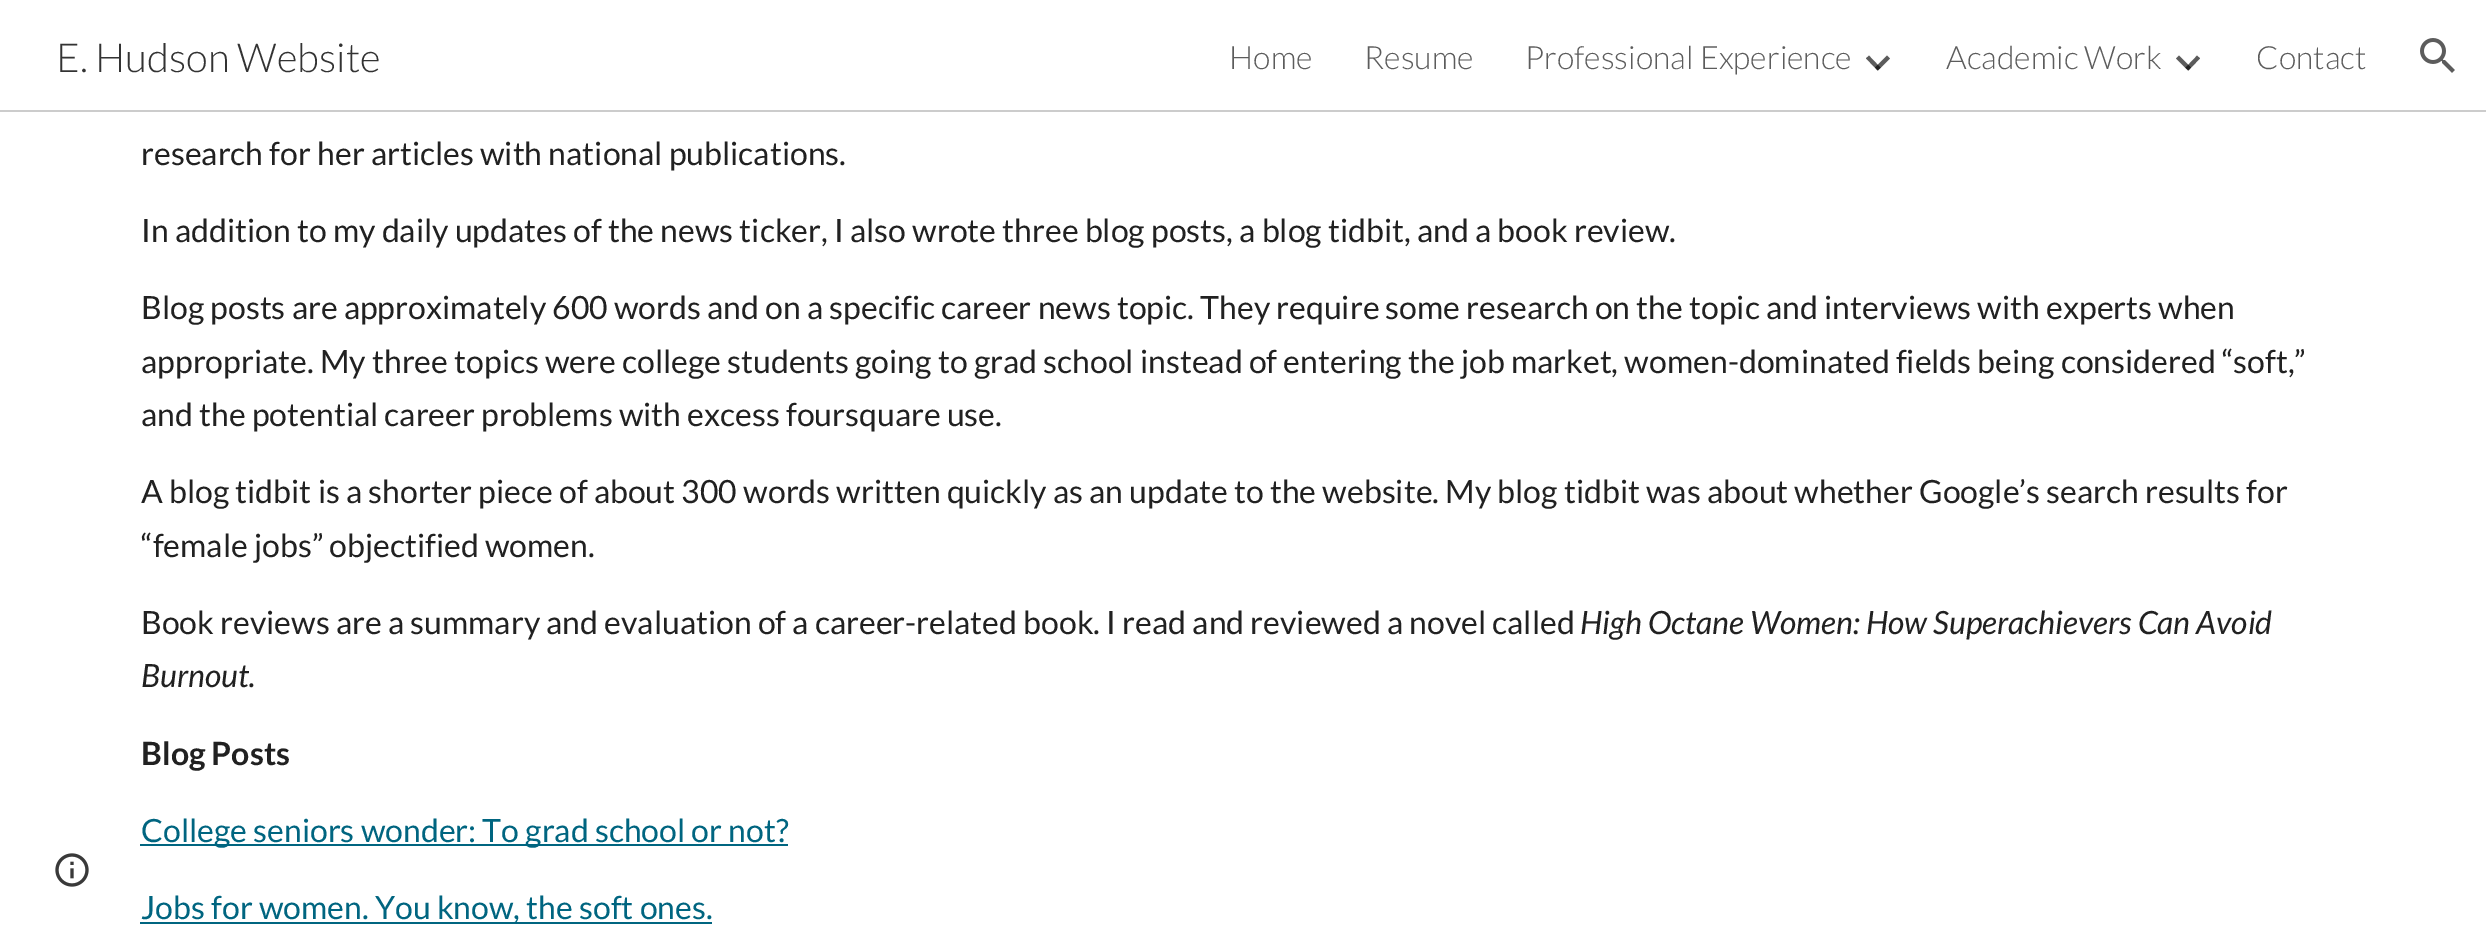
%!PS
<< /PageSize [2486 937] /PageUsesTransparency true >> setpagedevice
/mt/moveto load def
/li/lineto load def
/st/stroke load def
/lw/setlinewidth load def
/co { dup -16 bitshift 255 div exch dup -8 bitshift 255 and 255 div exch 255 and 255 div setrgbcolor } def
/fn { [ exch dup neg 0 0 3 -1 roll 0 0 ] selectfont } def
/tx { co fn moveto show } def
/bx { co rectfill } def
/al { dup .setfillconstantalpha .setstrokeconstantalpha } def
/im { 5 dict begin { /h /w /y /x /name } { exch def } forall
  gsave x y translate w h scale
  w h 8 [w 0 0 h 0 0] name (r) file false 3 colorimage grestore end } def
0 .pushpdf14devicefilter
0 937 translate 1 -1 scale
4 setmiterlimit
0 0 2486 937 16#FFFFFF bx
16#5C5C5C co
4 lw
1867.5 57 mt 1879 69 li st
0.64 al
16#000000 co
1876.5 69 mt 1888.5 57 li st
1 al
16#5C5C5C co
2177.5 57 mt 2189.5 69 li st
0.64 al
16#000000 co
2187 69 mt 2198.5 57 li st
1 al
(media/1.raw) 2420 38 35 35 im
0 110 2486 2 16#CCCCCC bx
(media/2.raw) 55 853 34 34 im
140 844 648 2 16#006580 bx
140 922 572 2 16#006580 bx
(E. Hudson Website) 56 72 /Lato-Light 40 16#333333 tx
(Home) 1229 69 /Lato-Light 32 16#5C5C5C tx
(Resume) 1364 69 /Lato-Light 32 16#5C5C5C tx
(Professional Experience) 1525 69 /Lato-Light 32 16#5C5C5C tx
(Academic Work) 1946 69 /Lato-Light 32 16#5C5C5C tx
(Contact) 2256 69 /Lato-Light 32 16#5C5C5C tx
(research for her articles with national publications.) 141 165 /Lato-Regular 32 16#212121 tx
(In addition to my daily updates of the news ticker, I also wrote three blog posts, a blog tidbit, and a book review.) 141 242 /Lato-Regular 32 16#212121 tx
(Blog posts are approximately 600 words and on a specific career news topic. They require some research on the topic and interviews with experts when) 141 319 /Lato-Regular 32 16#212121 tx
(appropriate. My three topics were college students going to grad school instead of entering the job market, women-dominated fields being considered “soft,”) 141 373 /Lato-Regular 32 16#212121 tx
(and the potential career problems with excess foursquare use.) 141 426 /Lato-Regular 32 16#212121 tx
(A blog tidbit is a shorter piece of about 300 words written quickly as an update to the website. My blog tidbit was about whether Google’s search results for) 141 503 /Lato-Regular 32 16#212121 tx
(“female jobs” objectified women.) 141 557 /Lato-Regular 32 16#212121 tx
(Book reviews are a summary and evaluation of a career-related book. I read and reviewed a novel called) 141 634 /Lato-Regular 32 16#212121 tx
(High Octane Women: How Superachievers Can Avoid) 1580 634 /Lato-Italic 32 16#212121 tx
(Burnout) 141 687 /Lato-Italic 32 16#212121 tx
(.) 248 687 /Lato-Regular 32 16#212121 tx
(Blog Posts) 141 765 /Lato-Bold 32 16#212121 tx
(College seniors wonder: To grad school or not?) 141 842 /Lato-Regular 32 16#006580 tx
(Jobs for women. You know, the soft ones.) 141 919 /Lato-Regular 32 16#006580 tx
.poppdf14devicefilter showpage
